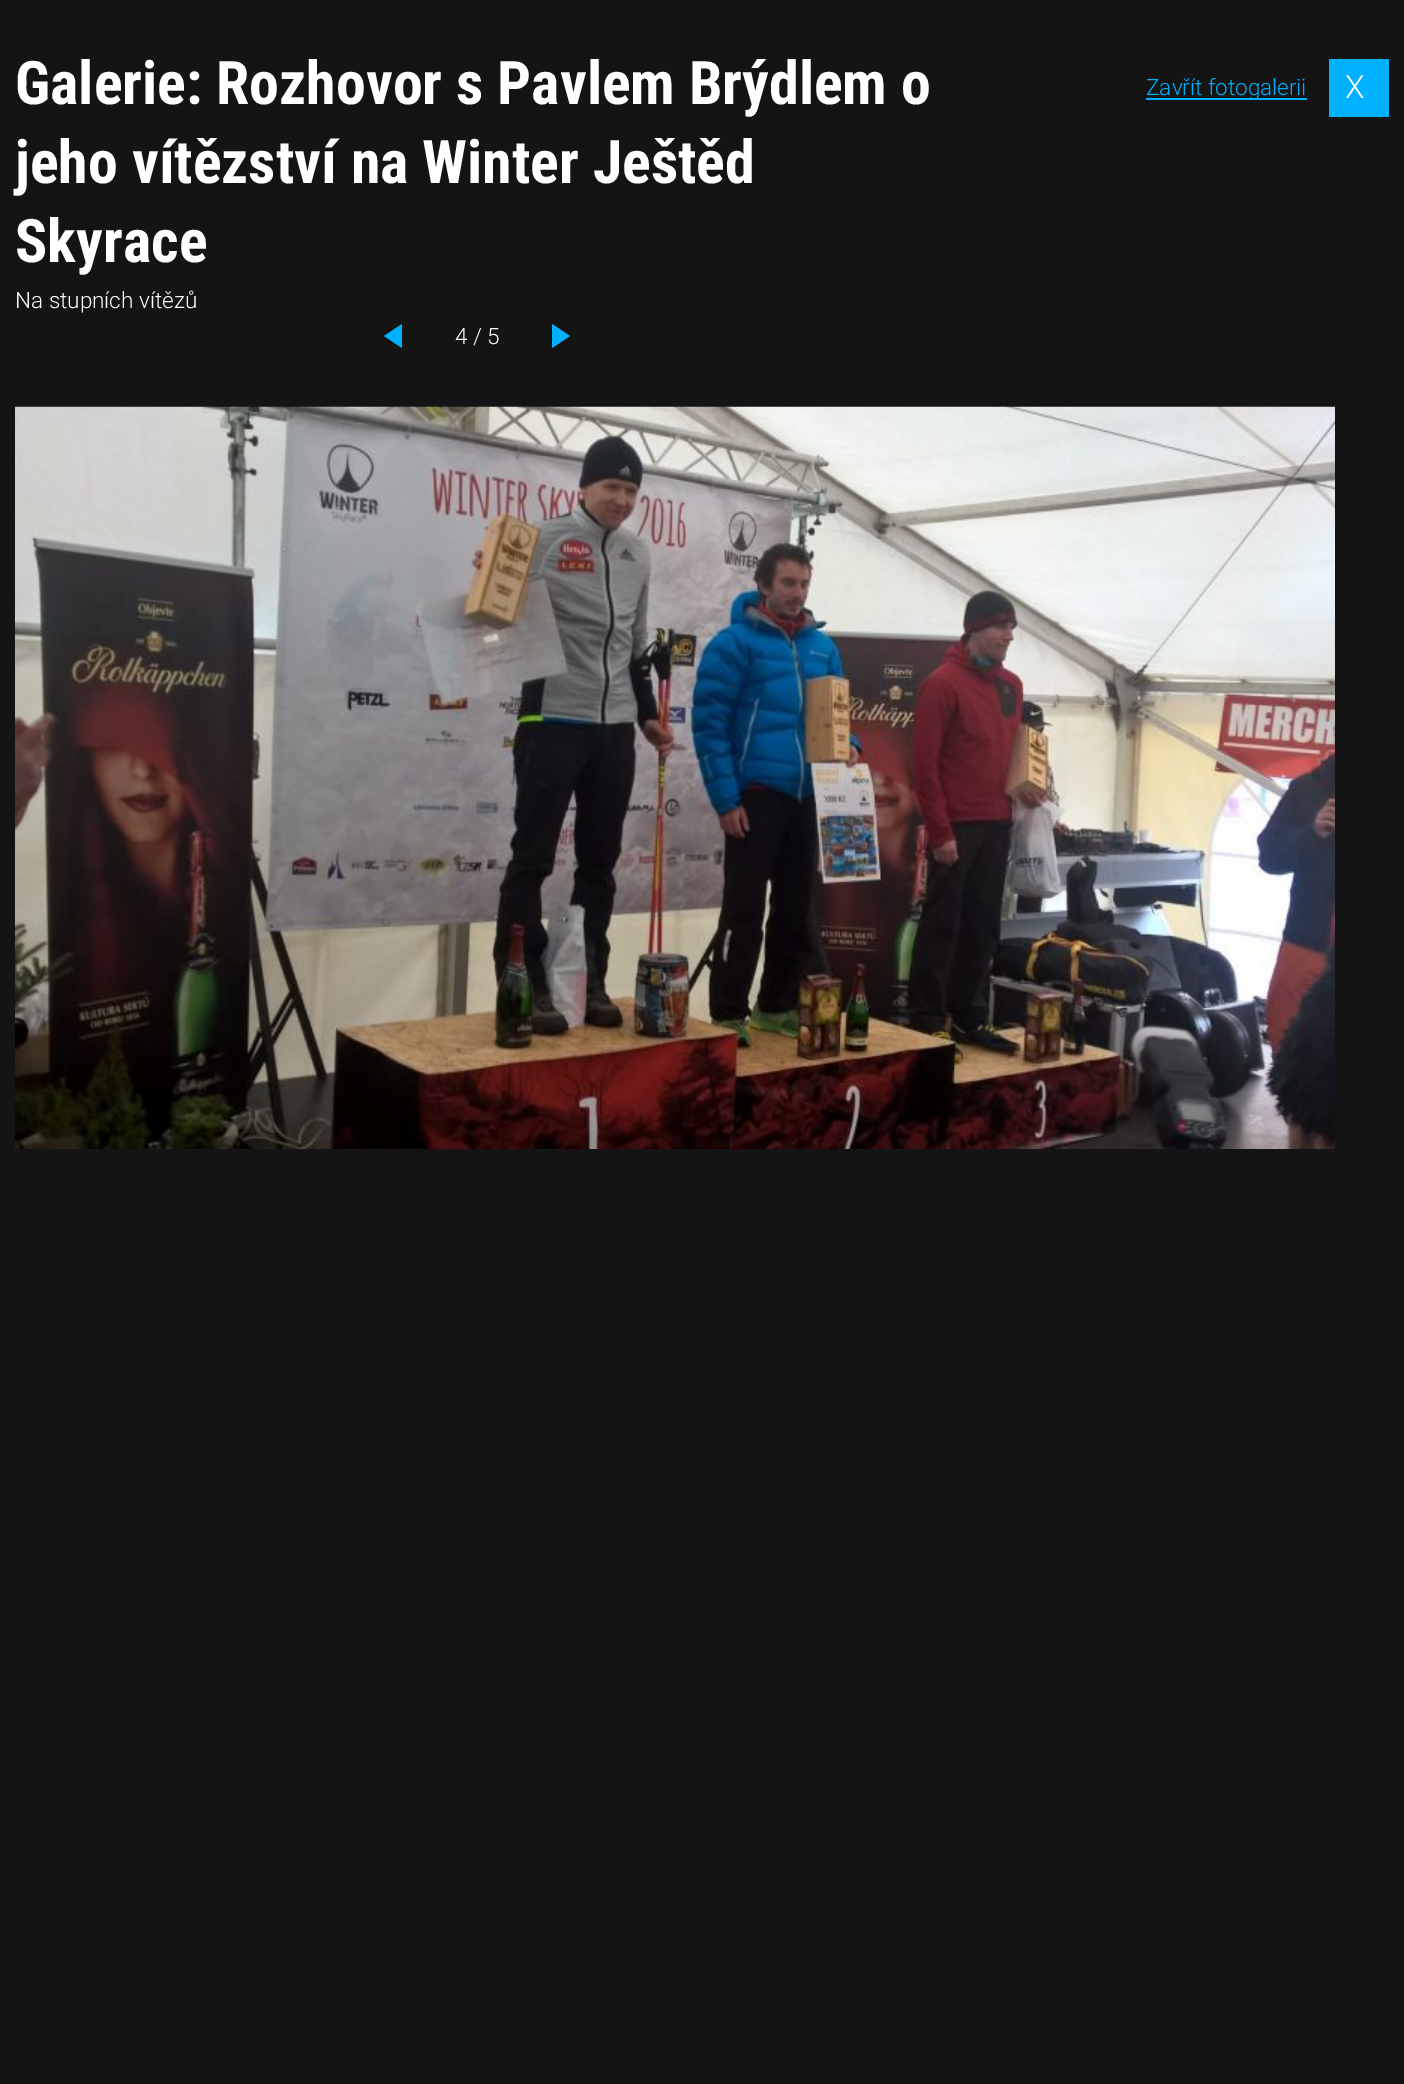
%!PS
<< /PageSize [1404 2084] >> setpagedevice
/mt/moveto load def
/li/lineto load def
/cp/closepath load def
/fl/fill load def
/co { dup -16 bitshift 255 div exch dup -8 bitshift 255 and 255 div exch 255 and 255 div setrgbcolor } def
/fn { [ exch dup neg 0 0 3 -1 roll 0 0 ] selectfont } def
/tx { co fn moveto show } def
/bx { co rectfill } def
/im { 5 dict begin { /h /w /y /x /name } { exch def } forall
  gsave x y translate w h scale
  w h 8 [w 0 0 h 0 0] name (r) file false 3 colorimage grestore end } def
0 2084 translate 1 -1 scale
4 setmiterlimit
0 0 1404 2084 16#141414 bx
16#00B1FF co
402 324 mt 402 348 li 384 336 li cp fl
552 348 mt 552 324 li 570 336 li cp fl
1146 98 161 2 16#00B1FF bx
1329 59 60 58 16#00B1FF bx
(media/1.raw) 15 406 1320 743 im
(Galerie: Rozhovor s Pavlem Brýdlem o) 15 104 /RobotoCondensed-Bold 60 16#FFFFFF tx
(jeho vítězství na Winter Ještěd) 15 183 /RobotoCondensed-Bold 60 16#FFFFFF tx
(Skyrace) 15 262 /RobotoCondensed-Bold 60 16#FFFFFF tx
(Na stupních vítězů) 15 308 /Roboto-Light 22.5 16#FFFFFF tx
(4 / 5) 455 344 /Roboto-Light 22.5 16#FFFFFF tx
(Zavřít fotogalerii) 1146 95 /Roboto-Light 22.5 16#00B1FF tx
/Roboto-Light 32 fn
16#FFFFFF co
1345 98 mt 8 0 (X) ashow
showpage
